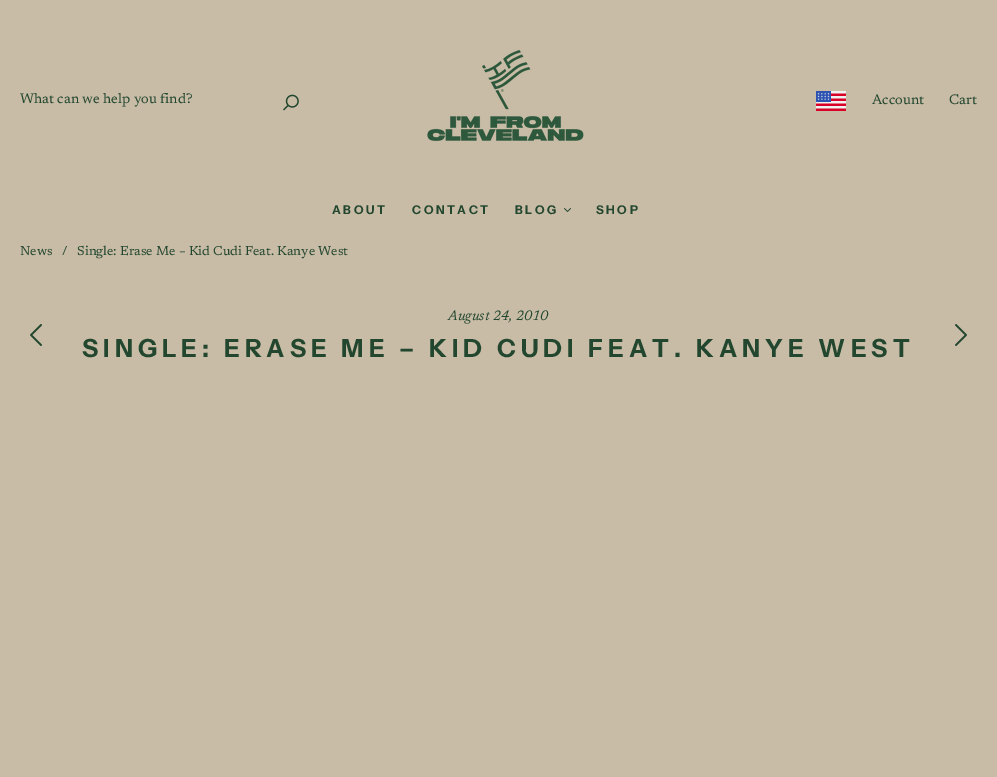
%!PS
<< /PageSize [997 777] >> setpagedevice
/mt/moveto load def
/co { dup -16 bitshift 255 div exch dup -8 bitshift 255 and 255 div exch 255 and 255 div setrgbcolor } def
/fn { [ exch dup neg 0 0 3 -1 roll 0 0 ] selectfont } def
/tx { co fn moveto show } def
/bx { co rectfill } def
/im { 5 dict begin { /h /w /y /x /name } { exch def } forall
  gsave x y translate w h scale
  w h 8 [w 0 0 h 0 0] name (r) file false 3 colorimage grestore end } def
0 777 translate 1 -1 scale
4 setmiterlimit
0 0 997 777 16#C8BCA7 bx
(media/1.raw) 283 94 16 17 im
(media/2.raw) 427 50 157 92 im
(media/3.raw) 816 91 30 20 im
(media/4.raw) 564 208 7 4 im
(media/5.raw) 30 324 12 22 im
(media/6.raw) 955 324 12 22 im
(What can we help you find?) 20 103 /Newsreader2-Regular 14 16#23472E tx
(Account) 872 104 /Newsreader2-Regular 14 16#23472E tx
(Cart) 949 104 /Newsreader2-Regular 14 16#23472E tx
/InstrumentSans-Bold 12 fn
332 214 mt 2.5 0 (ABOUT) ashow
412 214 mt 2.5 0 (CONTACT) ashow
515 214 mt 2.5 0 (BLOG) ashow
596 214 mt 2.5 0 (SHOP) ashow
(News) 20 255 /Newsreader-Regular 13 16#23472E tx
(/) 62 255 /Newsreader-Regular 13 16#23472E tx
(Single: Erase Me – Kid Cudi Feat. Kanye West) 77 255 /Newsreader-Regular 13 16#23472E tx
(August 24, 2010) 448 320 /Newsreader-Italic 14 16#23472E tx
/InstrumentSans-Bold 25 fn
82 357 mt 5 0 (SINGLE: ERASE ME – KID CUDI FEAT. KANYE WEST) ashow
showpage
